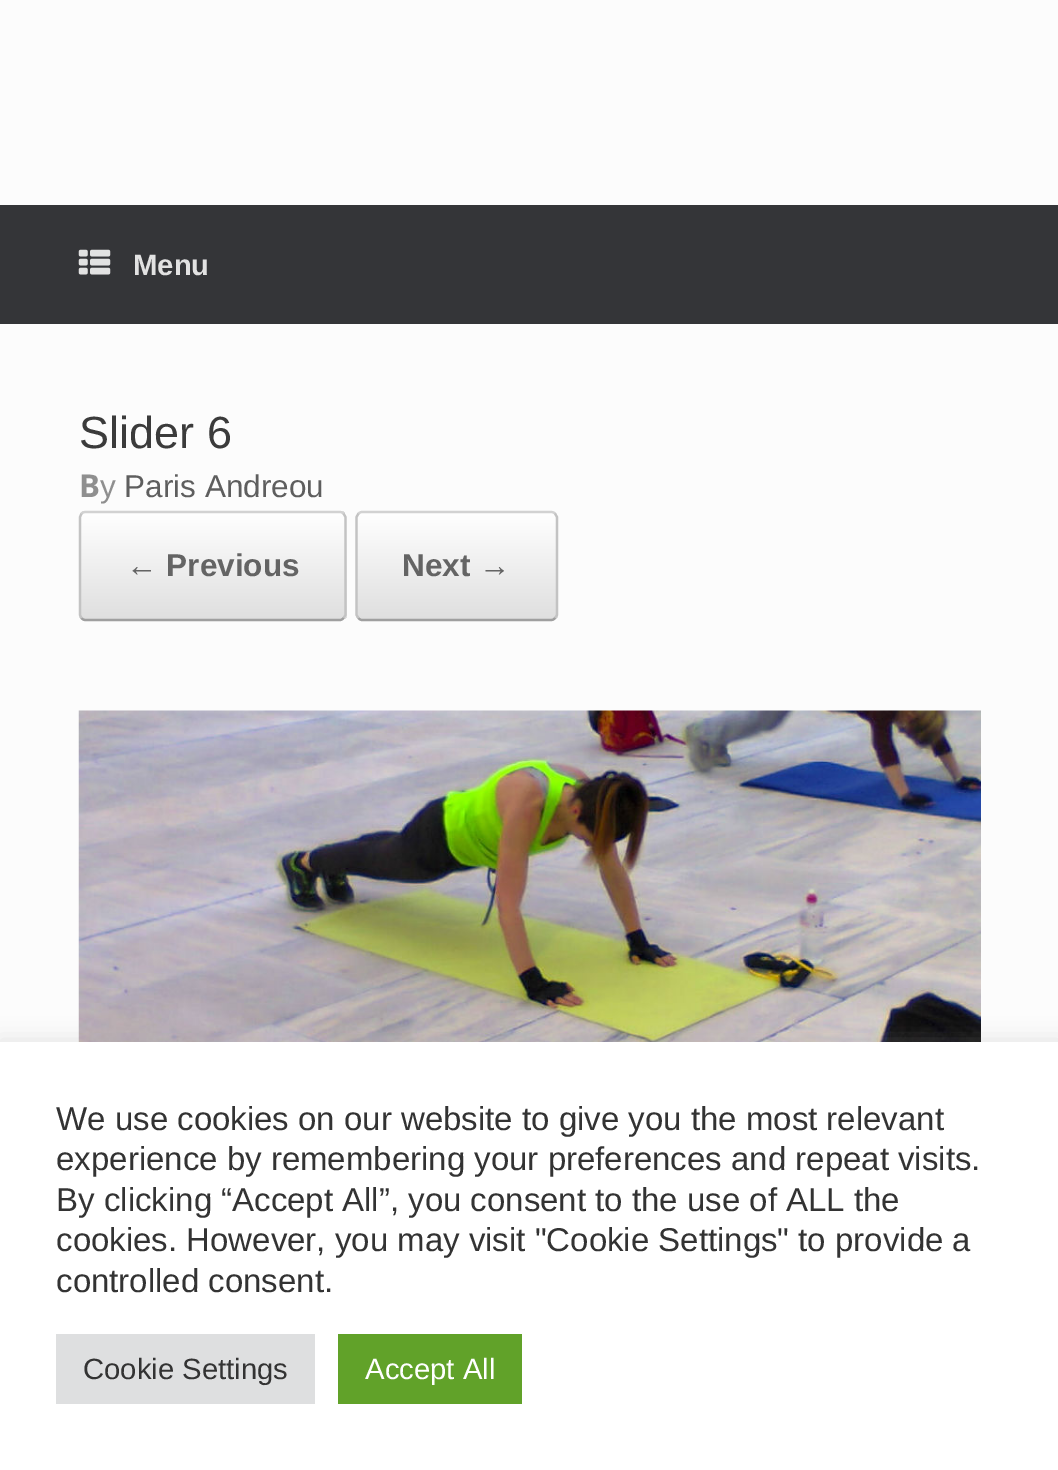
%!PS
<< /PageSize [1058 1470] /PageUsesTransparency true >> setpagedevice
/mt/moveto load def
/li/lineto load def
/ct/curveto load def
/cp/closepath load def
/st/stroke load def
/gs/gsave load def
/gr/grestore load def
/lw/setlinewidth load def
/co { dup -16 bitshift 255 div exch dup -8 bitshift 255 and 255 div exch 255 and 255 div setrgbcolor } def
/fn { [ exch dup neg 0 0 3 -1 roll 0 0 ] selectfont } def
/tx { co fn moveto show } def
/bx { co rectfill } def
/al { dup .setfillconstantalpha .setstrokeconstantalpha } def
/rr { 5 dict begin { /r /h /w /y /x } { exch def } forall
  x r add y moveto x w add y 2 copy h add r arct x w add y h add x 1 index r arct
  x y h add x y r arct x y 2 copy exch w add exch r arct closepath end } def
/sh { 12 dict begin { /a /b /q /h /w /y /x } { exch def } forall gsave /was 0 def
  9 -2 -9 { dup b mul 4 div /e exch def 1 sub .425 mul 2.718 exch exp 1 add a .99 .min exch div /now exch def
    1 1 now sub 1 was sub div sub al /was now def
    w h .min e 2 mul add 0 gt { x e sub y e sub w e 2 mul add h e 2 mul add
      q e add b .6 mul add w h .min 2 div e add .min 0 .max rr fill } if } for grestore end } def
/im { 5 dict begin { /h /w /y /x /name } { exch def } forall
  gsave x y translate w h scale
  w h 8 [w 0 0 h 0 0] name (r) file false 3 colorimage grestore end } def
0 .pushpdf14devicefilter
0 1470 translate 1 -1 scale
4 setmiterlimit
0 0 1058 1470 16#FCFCFC bx
0 205 1058 119 16#343538 bx
(media/1.raw) 78 249 33 26 im
gs
79 511 268 110 7 rr clip newpath
gs 79 511 mt 347 511 li 347 513 li 79 513 li cp clip newpath
<< /ShadingType 2 /ColorSpace /DeviceRGB /Coords [81 513 81 407] /Extend [true true] /Function << /FunctionType 2 /Domain [0 1] /C0 [.875 .875 .875] /C1 [1 1 1] /N 1 >> >> shfill gr
gs 79 513 mt 347 513 li 347 619 li 79 619 li cp clip newpath
<< /ShadingType 2 /ColorSpace /DeviceRGB /Coords [81 619 81 513] /Extend [true true] /Function << /FunctionType 2 /Domain [0 1] /C0 [.875 .875 .875] /C1 [1 1 1] /N 1 >> >> shfill gr
gs 79 619 mt 347 619 li 347 621 li 79 621 li cp clip newpath
<< /ShadingType 2 /ColorSpace /DeviceRGB /Coords [81 725 81 619] /Extend [true true] /Function << /FunctionType 2 /Domain [0 1] /C0 [.875 .875 .875] /C1 [1 1 1] /N 1 >> >> shfill gr
gr
16#D2D2D2 co
2.2 lw
81.5 513.5 mt 82.5 512.5 84 512 85.5 512 ct 340 512 li 341 512 342.5 512.5 343.5 513.5 ct st
16#C3C3C3 co
343.5 513.5 mt 345.5 517 li 345.5 615 li 343.5 618 li st
16#9F9F9F co
343.5 618 mt 342.5 619.5 341 620 340 620 ct 85.5 620 li 84 620 82.5 619.5 81.5 618 ct st
16#C3C3C3 co
81.5 618 mt 80 615 li 80 517 li 81.5 513.5 li st
gs
356 511 202 110 7 rr clip newpath
gs 356 513 mt 558 513 li 558 619 li 356 619 li cp clip newpath
<< /ShadingType 2 /ColorSpace /DeviceRGB /Coords [358 619 358 513] /Extend [true true] /Function << /FunctionType 2 /Domain [0 1] /C0 [.875 .875 .875] /C1 [1 1 1] /N 1 >> >> shfill gr
gr
16#D2D2D2 co
358.5 513.5 mt 359.5 512.5 361 512 362 512 ct 551 512 li 552.5 512 554 512.5 555 513.5 ct st
16#C3C3C3 co
555 513.5 mt 557 517 li 557 615 li 555 618 li st
16#9F9F9F co
555 618 mt 554 619.5 552.5 620 551 620 ct 362 620 li 361 620 359.5 619.5 358.5 618 ct st
16#C3C3C3 co
358.5 618 mt 356.5 615 li 356.5 517 li 358.5 513.5 li st
(media/2.raw) 78 710 903 332 im
16#ACABAB co
0 1040 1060 429 0 11 .3 sh
0 1042 1058 428 16#FFFFFF bx
56 1334 259 70 16#DEDFE0 bx
338 1334 184 70 16#61A229 bx
(Menu) 133 275 /LiberationSans-Bold 29.25 16#E2E2E2 tx
(Slider 6) 79 448 /LiberationSans-Regular 45 16#3B3B3B tx
(B) 79 497 /NotoSans-Bold 31.5 16#8F8F8F tx
(y) 100 497 /LiberationSans-Regular 31.5 16#8F8F8F tx
(Paris Andreou) 124 497 /LiberationSans-Regular 31.5 16#5E5E5E tx
(← Previous) 126 576 /LiberationSans-Bold 31.5 16#646464 tx
(Next →) 402 576 /LiberationSans-Bold 31.5 16#646464 tx
(We use cookies on our website to give you the most relevant) 56 1130 /LiberationSans-Regular 33 16#333333 tx
(experience by remembering your preferences and repeat visits.) 56 1170 /LiberationSans-Regular 33 16#333333 tx
(By clicking “Accept All”, you consent to the use of ALL the) 56 1211 /LiberationSans-Regular 33 16#333333 tx
(cookies. However, you may visit "Cookie Settings" to provide a) 56 1251 /LiberationSans-Regular 33 16#333333 tx
(controlled consent.) 56 1292 /LiberationSans-Regular 33 16#333333 tx
(Cookie Settings) 83 1379 /LiberationSans-Regular 29.25 16#333333 tx
(Accept All) 365 1379 /LiberationSans-Regular 29.25 16#FFFFFF tx
.poppdf14devicefilter showpage
